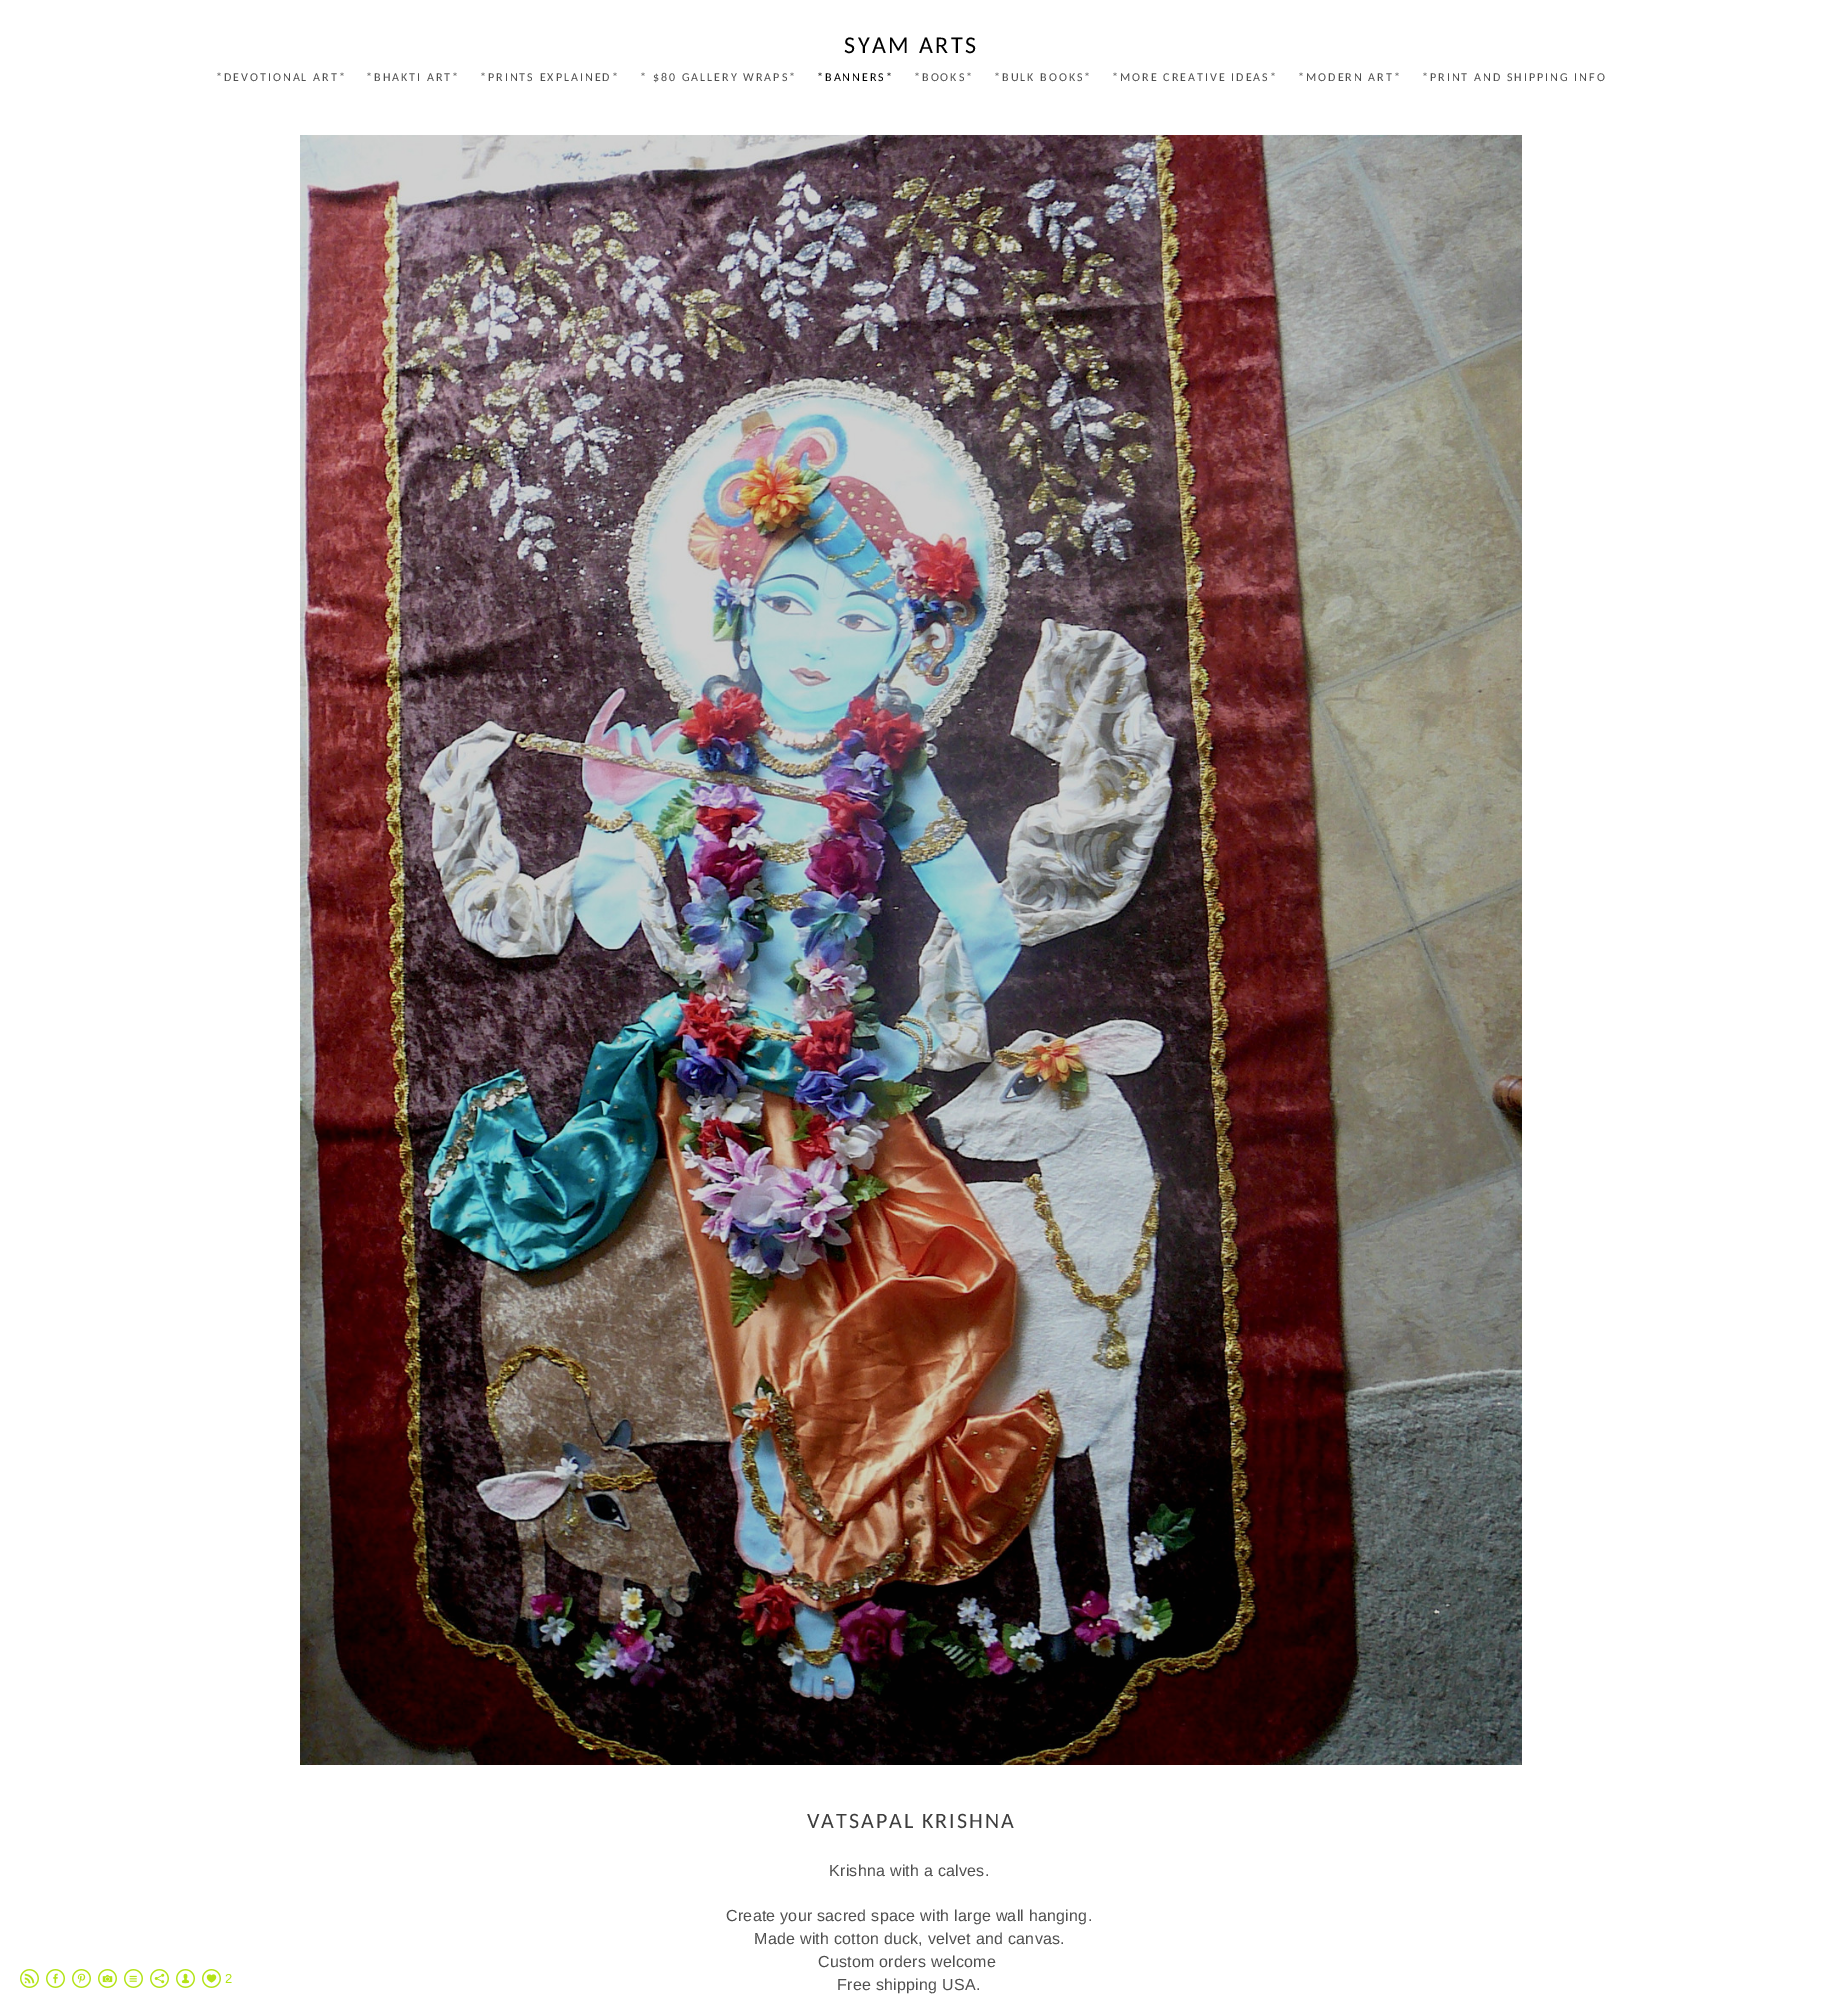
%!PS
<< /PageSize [1822 2003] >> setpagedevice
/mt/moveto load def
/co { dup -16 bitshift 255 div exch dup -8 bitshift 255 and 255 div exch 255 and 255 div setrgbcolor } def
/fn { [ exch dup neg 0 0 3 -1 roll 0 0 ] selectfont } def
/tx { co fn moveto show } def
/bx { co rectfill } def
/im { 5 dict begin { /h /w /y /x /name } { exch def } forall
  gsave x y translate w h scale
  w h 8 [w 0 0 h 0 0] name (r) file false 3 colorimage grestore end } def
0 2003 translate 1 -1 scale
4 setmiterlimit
0 0 1822 2003 16#FFFFFF bx
(media/1.raw) 20 1969 19 19 im
(media/2.raw) 46 1969 19 19 im
(media/3.raw) 72 1969 19 19 im
(media/4.raw) 98 1969 19 19 im
(media/5.raw) 124 1969 19 19 im
(media/6.raw) 150 1969 19 19 im
(media/7.raw) 176 1969 19 19 im
(media/8.raw) 202 1969 19 19 im
(media/9.raw) 300 135 1222 1630 im
/Carlito-Regular 24 fn
16#000000 co
844 53 mt 2.5 0 (SYAM ARTS) ashow
/Carlito-Regular 12 fn
16#4F4F4F co
216 81 mt 2 0 (*DEVOTIONAL ART*) ashow
366 81 mt 2 0 (*BHAKTI ART*) ashow
480 81 mt 2 0 (*PRINTS EXPLAINED*) ashow
640 81 mt 2 0 (* $80 GALLERY WRAPS*) ashow
16#000000 co
817 81 mt 2 0 (*BANNERS*) ashow
16#4F4F4F co
914 81 mt 2 0 (*BOOKS*) ashow
994 81 mt 2 0 (*BULK BOOKS*) ashow
1112 81 mt 2 0 (*MORE CREATIVE IDEAS*) ashow
1298 81 mt 2 0 (*MODERN ART*) ashow
1422 81 mt 2 0 (*PRINT AND SHIPPING INFO) ashow
(2) 225 1983 /LiberationSans-Regular 13 16#B3E316 tx
/Carlito-Regular 22 fn
16#3D3D3D co
807 1828 mt 2 0 (VATSAPAL KRISHNA) ashow
/LiberationSans-Regular 16 fn
16#4F4F4F co
829 1876 mt .25 0 (Krishna with a calves.) ashow
726 1921 mt .25 0 (Create your sacred space with large wall hanging.) ashow
754 1944 mt .25 0 (Made with cotton duck, velvet and canvas.) ashow
818 1967 mt .25 0 (Custom orders welcome) ashow
837 1990 mt .25 0 (Free shipping USA.) ashow
showpage
